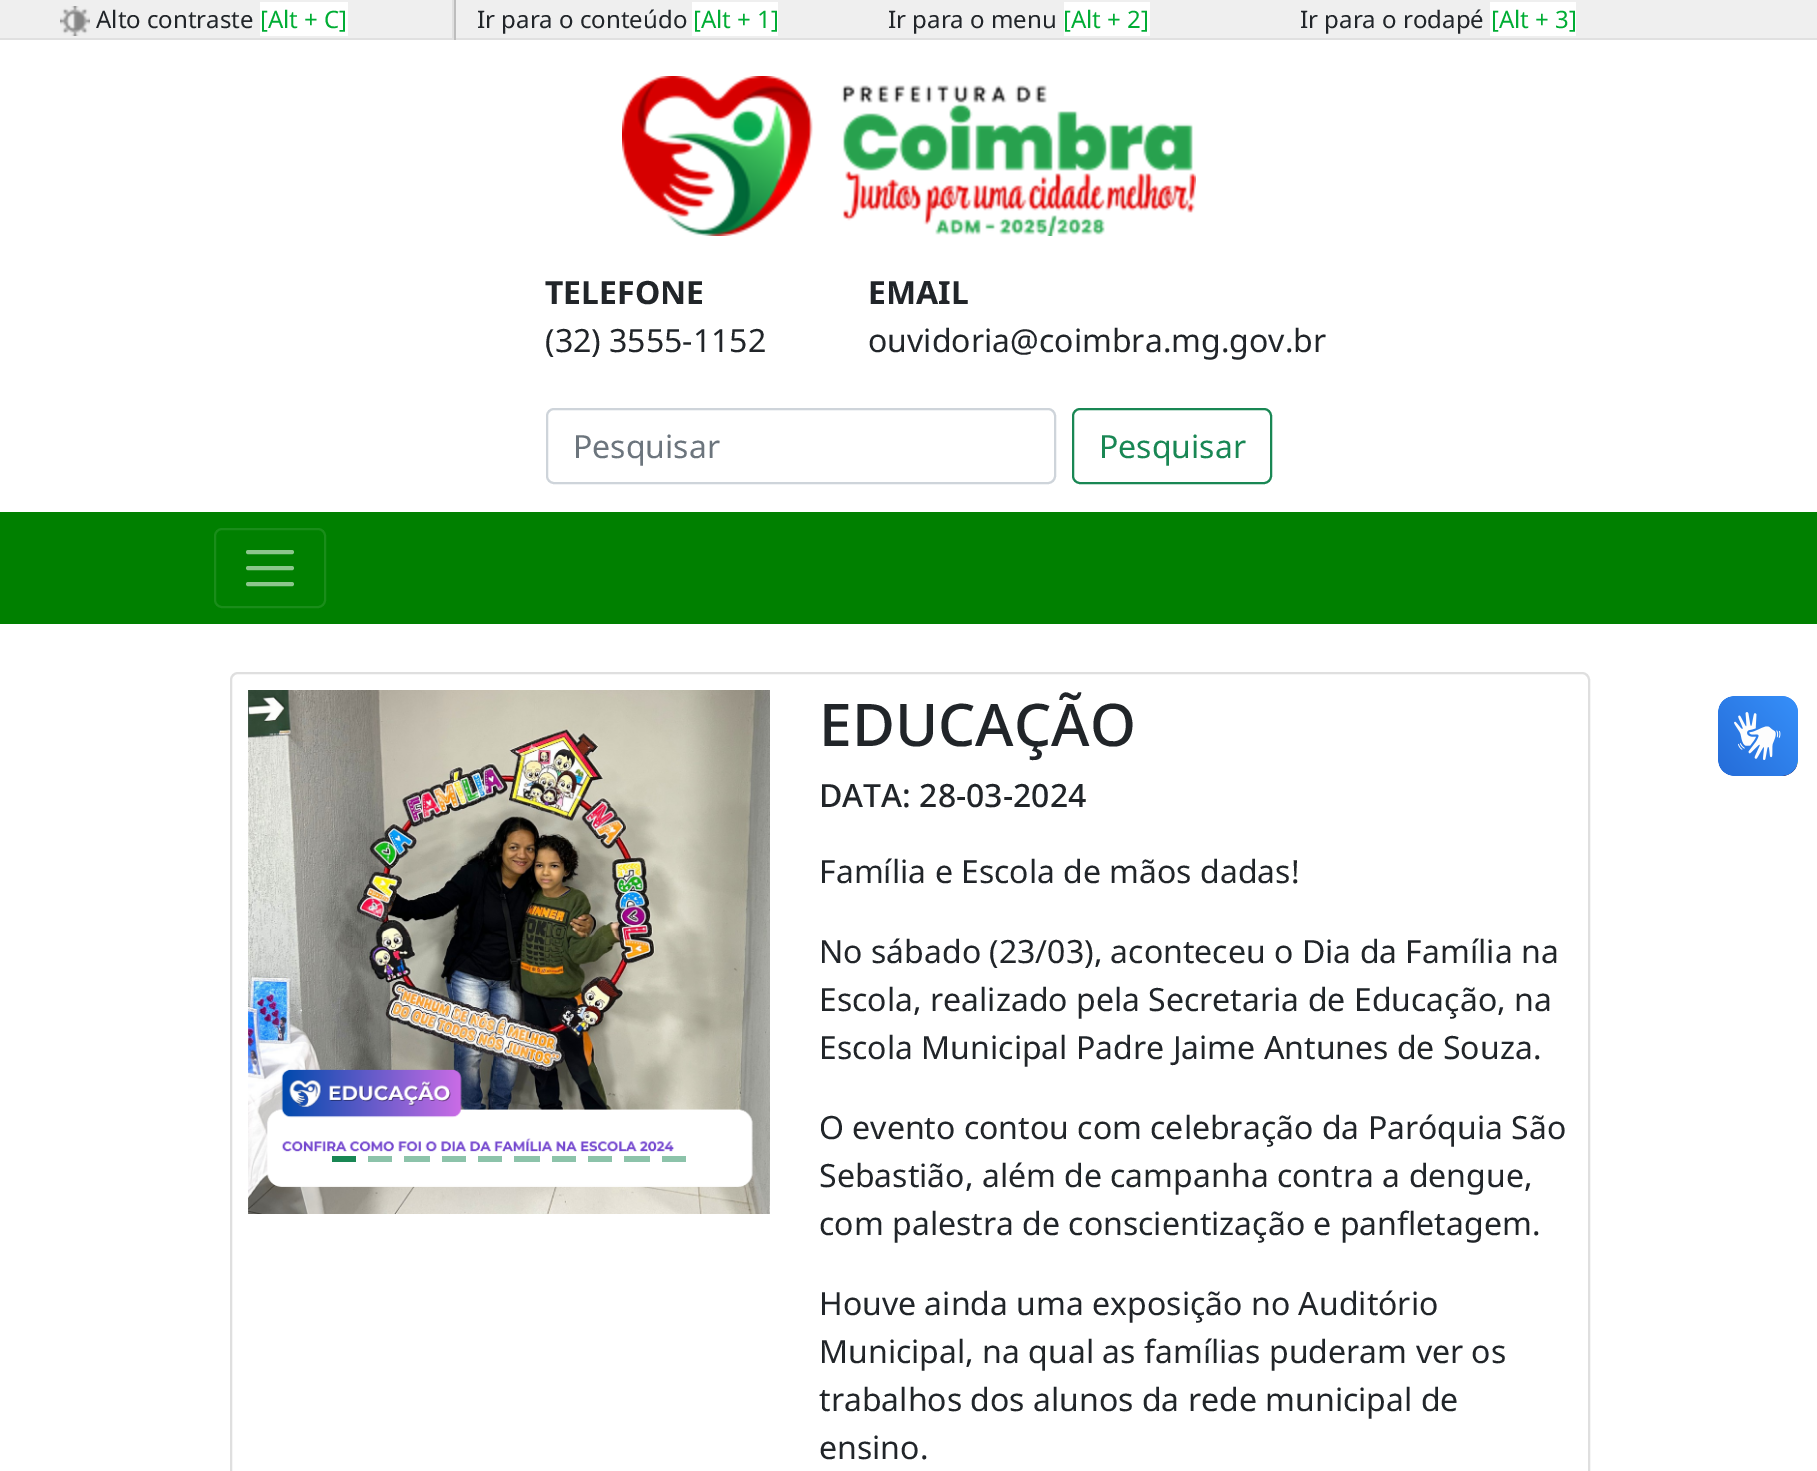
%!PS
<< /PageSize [1817 1471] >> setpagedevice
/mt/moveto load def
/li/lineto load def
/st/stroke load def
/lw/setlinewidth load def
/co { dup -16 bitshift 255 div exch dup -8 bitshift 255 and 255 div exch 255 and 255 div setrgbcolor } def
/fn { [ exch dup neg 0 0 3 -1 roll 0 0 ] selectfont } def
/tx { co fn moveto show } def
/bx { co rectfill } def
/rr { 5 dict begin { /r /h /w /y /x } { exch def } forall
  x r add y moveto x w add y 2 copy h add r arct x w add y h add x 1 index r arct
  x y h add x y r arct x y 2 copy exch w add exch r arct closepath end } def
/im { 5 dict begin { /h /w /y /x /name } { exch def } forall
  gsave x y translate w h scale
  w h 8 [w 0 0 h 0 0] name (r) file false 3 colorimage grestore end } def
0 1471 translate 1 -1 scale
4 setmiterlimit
0 0 1817 1471 16#FFFFFF bx
0 0 1817 38 16#EFEFEF bx
0 38 1817 2 16#E0E0E0 bx
452 0 2 40 16#E0E0E0 bx
(media/1.raw) 60 6 30 30 im
260 2 88 34 16#FFFFFF bx
454 0 2 40 16#BDBDBD bx
692 2 86 34 16#FFFFFF bx
1064 2 86 34 16#FFFFFF bx
1490 2 86 34 16#FFFFFF bx
(media/2.raw) 622 76 574 160 im
16#CED4DA co
2 lw
547 409 508 74 7 rr st
16#198754 co
1073 409 198 74 7 rr st
0 512 1817 112 16#008000 bx
16#1A8D1A co
215 529 110 78 7 rr st
16#8CC68C co
4 lw
1 setlinecap
248 552 mt 292 552 li 248 568 mt 292 568 li 248 584 mt 292 584 li st
16#DFDFDF co
2 lw
0 setlinecap
231 673 1358 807 7 rr st
(media/3.raw) 248 690 522 524 im
332 1156 24 6 16#198754 bx
368 1156 24 6 16#8CC3AA bx
404 1156 26 6 16#8CC3AA bx
442 1156 24 6 16#8CC3AA bx
478 1156 24 6 16#8CC3AA bx
514 1156 26 6 16#8CC3AA bx
552 1156 24 6 16#8CC3AA bx
588 1156 24 6 16#8CC3AA bx
624 1156 26 6 16#8CC3AA bx
662 1156 24 6 16#8CC3AA bx
(media/4.raw) 1718 696 80 80 im
(media/5.raw) 1718 696 80 80 im
(Alto contraste) 96 28 /NotoSans-Regular 24 16#212529 tx
([Alt + C]) 260 28 /NotoSans-Regular 24 16#00AD34 tx
(Ir para o conteúdo) 477 28 /NotoSans-Regular 24 16#212529 tx
([Alt + 1]) 693 28 /NotoSans-Regular 24 16#00AD34 tx
(Ir para o menu) 888 28 /NotoSans-Regular 24 16#212529 tx
([Alt + 2]) 1063 28 /NotoSans-Regular 24 16#00AD34 tx
(Ir para o rodapé) 1300 28 /NotoSans-Regular 24 16#212529 tx
([Alt + 3]) 1491 28 /NotoSans-Regular 24 16#00AD34 tx
(TELEFONE) 545 304 /NotoSans-Bold 32 16#212529 tx
(\(32\) 3555-1152) 545 352 /NotoSans-Regular 32 16#212529 tx
(EMAIL) 868 304 /NotoSans-Bold 32 16#212529 tx
(ouvidoria@coimbra.mg.gov.br) 868 352 /NotoSans-Regular 32 16#212529 tx
(Pesquisar) 573 458 /NotoSans-Regular 32 16#6C757D tx
(Pesquisar) 1099 458 /NotoSans-Regular 32 16#198754 tx
(EDUCAÇÃO) 819 746 /NotoSans-Medium 58.75 16#212529 tx
(DATA: 28-03-2024) 819 807 /NotoSans-Medium 32 16#212529 tx
(Família e Escola de mãos dadas!) 819 883 /NotoSans-Regular 32 16#212529 tx
(No sábado \(23/03\), aconteceu o Dia da Família na) 819 963 /NotoSans-Regular 32 16#212529 tx
(Escola, realizado pela Secretaria de Educação, na) 819 1011 /NotoSans-Regular 32 16#212529 tx
(Escola Municipal Padre Jaime Antunes de Souza.) 819 1059 /NotoSans-Regular 32 16#212529 tx
(O evento contou com celebração da Paróquia São) 819 1139 /NotoSans-Regular 32 16#212529 tx
(Sebastião, além de campanha contra a dengue,) 819 1187 /NotoSans-Regular 32 16#212529 tx
(com palestra de conscientização e panfletagem.) 819 1235 /NotoSans-Regular 32 16#212529 tx
(Houve ainda uma exposição no Auditório) 819 1315 /NotoSans-Regular 32 16#212529 tx
(Municipal, na qual as famílias puderam ver os) 819 1363 /NotoSans-Regular 32 16#212529 tx
(trabalhos dos alunos da rede municipal de) 819 1411 /NotoSans-Regular 32 16#212529 tx
(ensino.) 819 1459 /NotoSans-Regular 32 16#212529 tx
showpage
